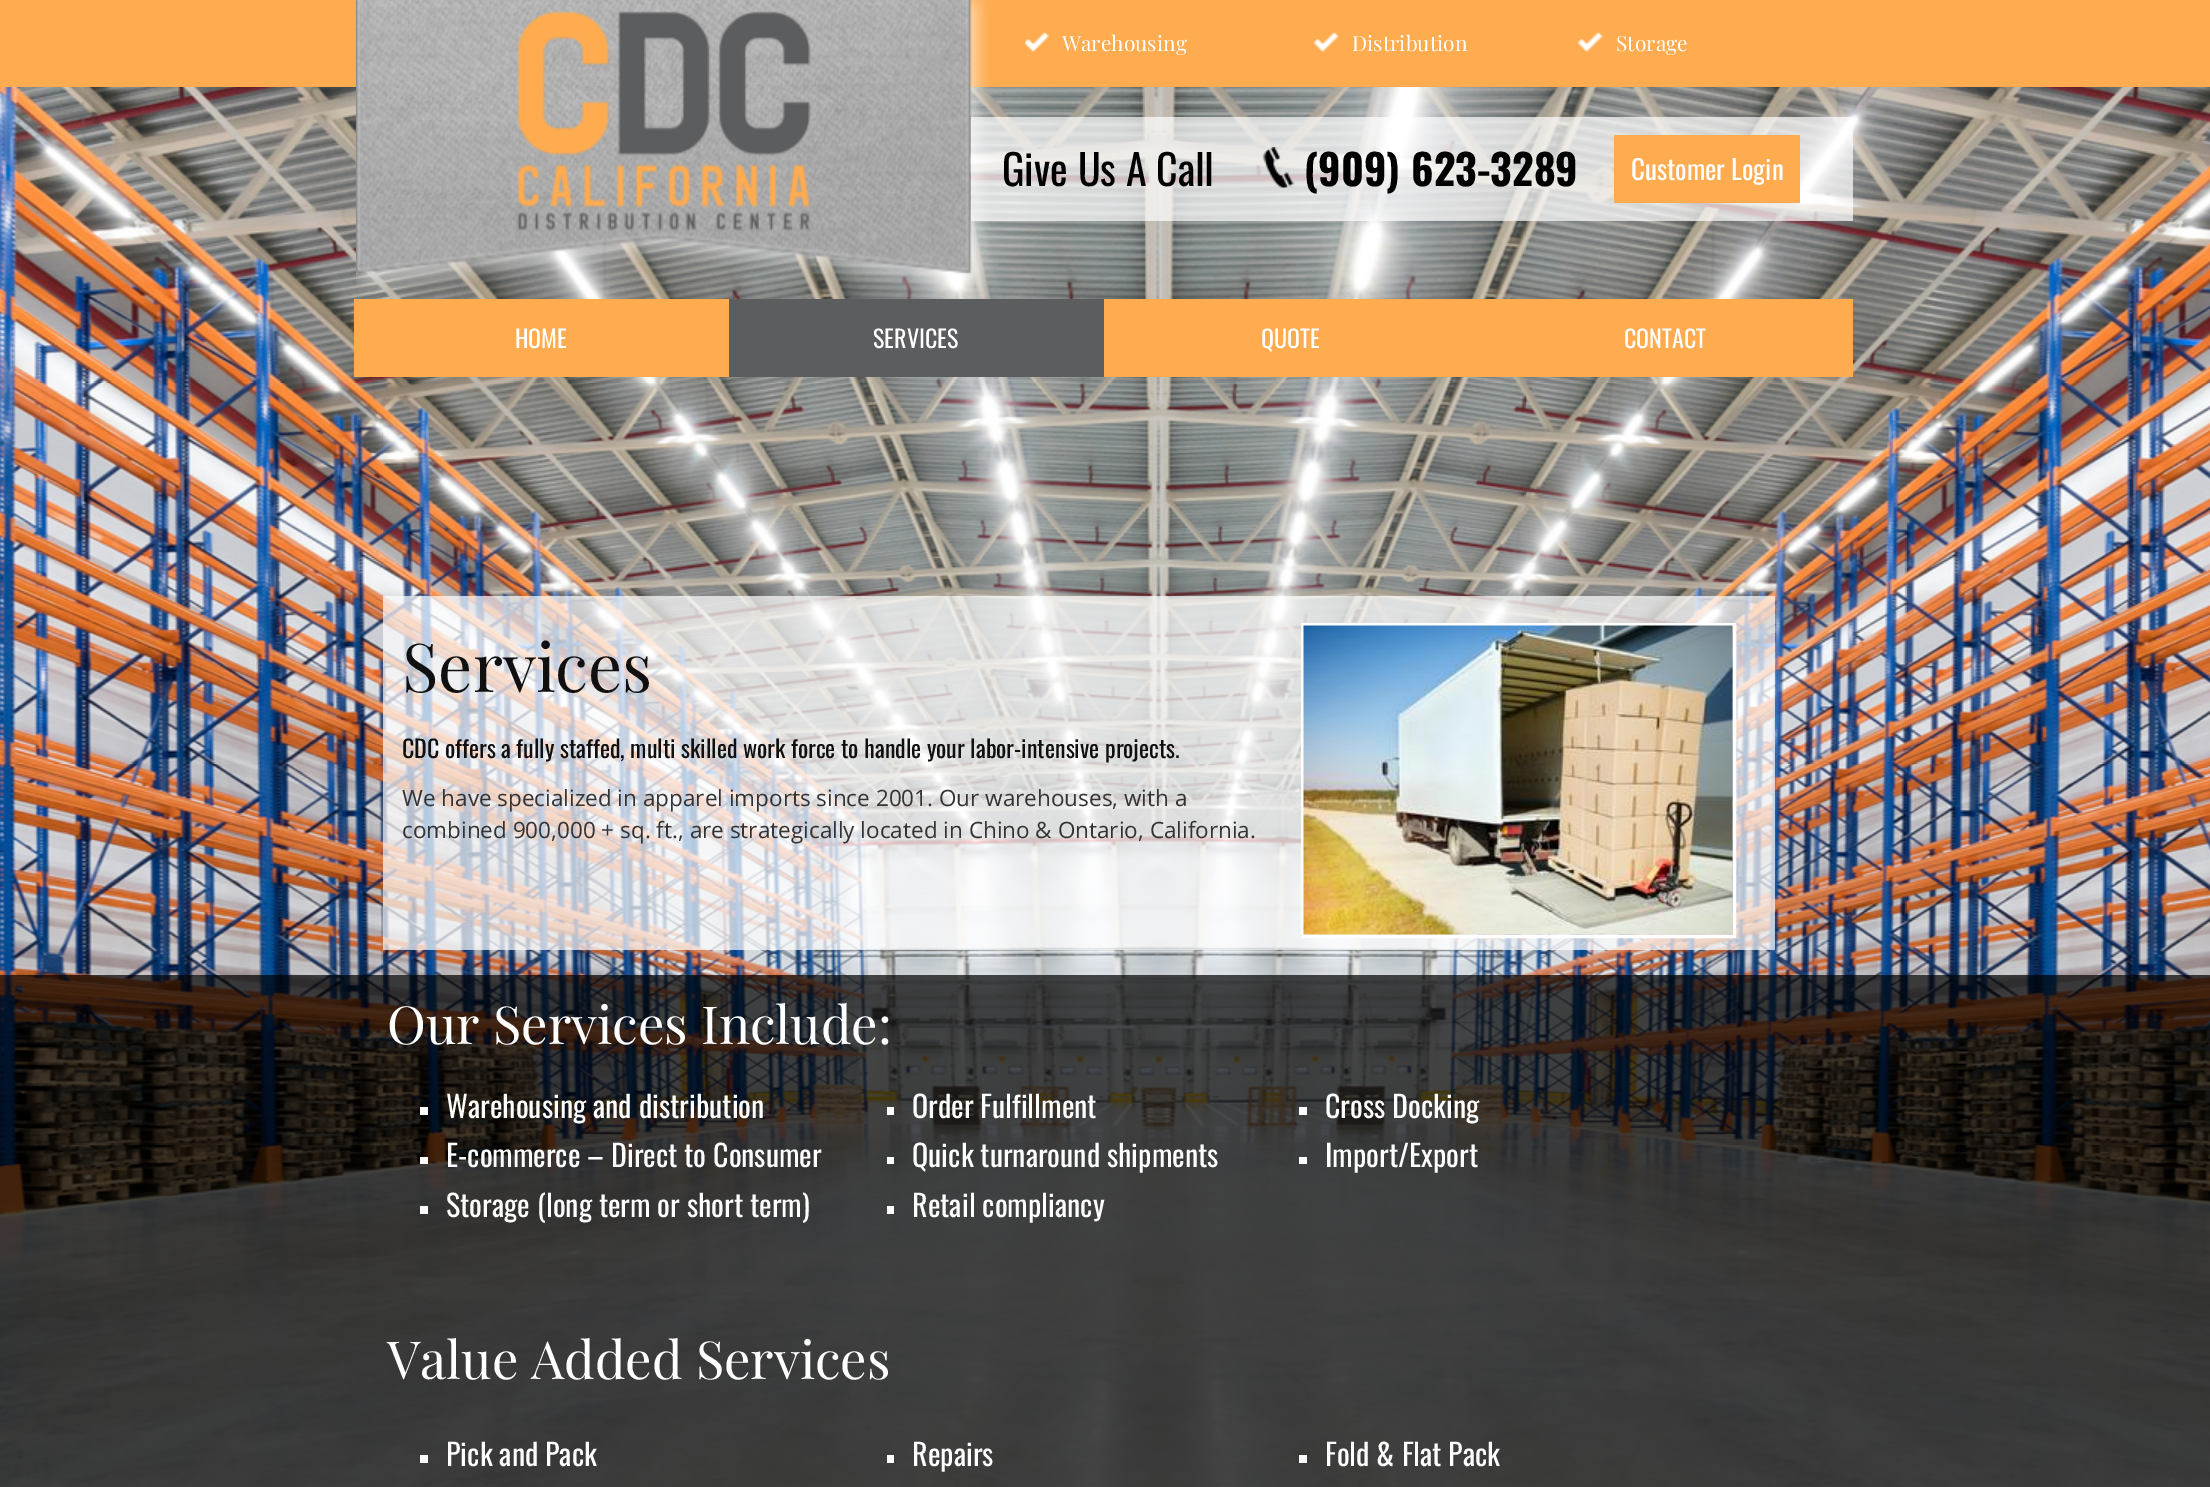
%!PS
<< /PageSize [2210 1487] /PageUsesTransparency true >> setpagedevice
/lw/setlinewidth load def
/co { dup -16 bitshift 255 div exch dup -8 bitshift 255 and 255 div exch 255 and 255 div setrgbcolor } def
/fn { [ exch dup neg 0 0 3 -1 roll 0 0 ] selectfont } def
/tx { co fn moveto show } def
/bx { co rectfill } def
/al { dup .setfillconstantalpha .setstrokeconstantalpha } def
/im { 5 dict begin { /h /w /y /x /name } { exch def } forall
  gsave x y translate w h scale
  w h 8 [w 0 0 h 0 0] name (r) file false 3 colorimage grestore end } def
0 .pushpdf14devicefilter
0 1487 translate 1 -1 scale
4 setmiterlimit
0 0 2210 1487 16#FFFFFF bx
(media/1.raw) 0 87 2210 1400 im
0 0 2210 87 16#FFAB50 bx
(media/2.raw) 356 0 634 291 im
(media/3.raw) 517 11 294 220 im
(media/4.raw) 1025 31 24 22 im
(media/5.raw) 1313 31 26 22 im
(media/6.raw) 1577 31 26 22 im
0.7 al
971 117 882 104 16#FFFFFF bx
1 al
(media/7.raw) 1262 147 33 41 im
1614 135 186 68 16#FFAB50 bx
354 299 1499 78 16#FFAB50 bx
729 299 375 78 16#5C5D5F bx
0.7 al
383 596 1392 354 16#FFFFFF bx
1 al
3 lw
1302.5 624.5 432 312 rectstroke
(media/8.raw) 1303 625 430 310 im
0.7 al
0 975 2210 512 16#000000 bx
1 al
420 1107 8 8 16#FFFFFF bx
420 1157 8 7 16#FFFFFF bx
420 1206 8 8 16#FFFFFF bx
887 1107 7 8 16#FFFFFF bx
887 1157 7 7 16#FFFFFF bx
887 1206 7 8 16#FFFFFF bx
1299 1107 8 8 16#FFFFFF bx
1299 1157 8 7 16#FFFFFF bx
420 1455 8 8 16#FFFFFF bx
887 1455 7 8 16#FFFFFF bx
1299 1455 8 8 16#FFFFFF bx
(Warehousing) 1062 51 /PlayfairDisplay-Regular 21 16#FFFFFF tx
(Distribution) 1352 51 /PlayfairDisplay-Regular 21 16#FFFFFF tx
(Storage) 1616 51 /PlayfairDisplay-Regular 21 16#FFFFFF tx
(Give Us A Call) 1002 186 /Oswald-Regular 42 16#000000 tx
(\(909\) 623-3289) 1304 186 /Oswald-Bold 42 16#000000 tx
(Customer Login) 1631 180 /Oswald-Regular 27 16#FFFFFF tx
(HOME) 515 348 /Oswald-Regular 24 16#FFFFFF tx
(SERVICES) 873 348 /Oswald-Regular 24 16#FFFFFF tx
(QUOTE) 1261 348 /Oswald-Regular 24 16#FFFFFF tx
(CONTACT) 1624 348 /Oswald-Regular 24 16#FFFFFF tx
(Services) 402 692 /PlayfairDisplay-Regular 67.5 16#101010 tx
(CDC offers a fully staffed, multi skilled work force to handle your labor-intensive projects.) 402 758 /Oswald-Regular 24 16#101010 tx
(We have specialized in apparel imports since 2001. Our warehouses, with a) 402 806 /OpenSans-Regular 22.5 16#333333 tx
(combined 900,000 + sq. ft., are strategically located in Chino & Ontario, California.) 402 838 /OpenSans-Regular 22.5 16#333333 tx
(Our Services Include:) 387 1044 /PlayfairDisplay-Regular 52.5 16#FFFFFF tx
(Warehousing and distribution) 446 1118 /Oswald-Regular 30 16#FFFFFF tx
(E-commerce – Direct to Consumer) 446 1167 /Oswald-Regular 30 16#FFFFFF tx
(Storage \(long term or short term\)) 446 1217 /Oswald-Regular 30 16#FFFFFF tx
(Order Fulfillment) 912 1118 /Oswald-Regular 30 16#FFFFFF tx
(Quick turnaround shipments) 912 1167 /Oswald-Regular 30 16#FFFFFF tx
(Retail compliancy) 912 1217 /Oswald-Regular 30 16#FFFFFF tx
(Cross Docking) 1325 1118 /Oswald-Regular 30 16#FFFFFF tx
(Import/Export) 1325 1167 /Oswald-Regular 30 16#FFFFFF tx
(Value Added Services) 387 1379 /PlayfairDisplay-Regular 52.5 16#FFFFFF tx
(Pick and Pack) 446 1466 /Oswald-Regular 30 16#FFFFFF tx
(Repairs) 912 1466 /Oswald-Regular 30 16#FFFFFF tx
(Fold & Flat Pack) 1325 1466 /Oswald-Regular 30 16#FFFFFF tx
.poppdf14devicefilter showpage
